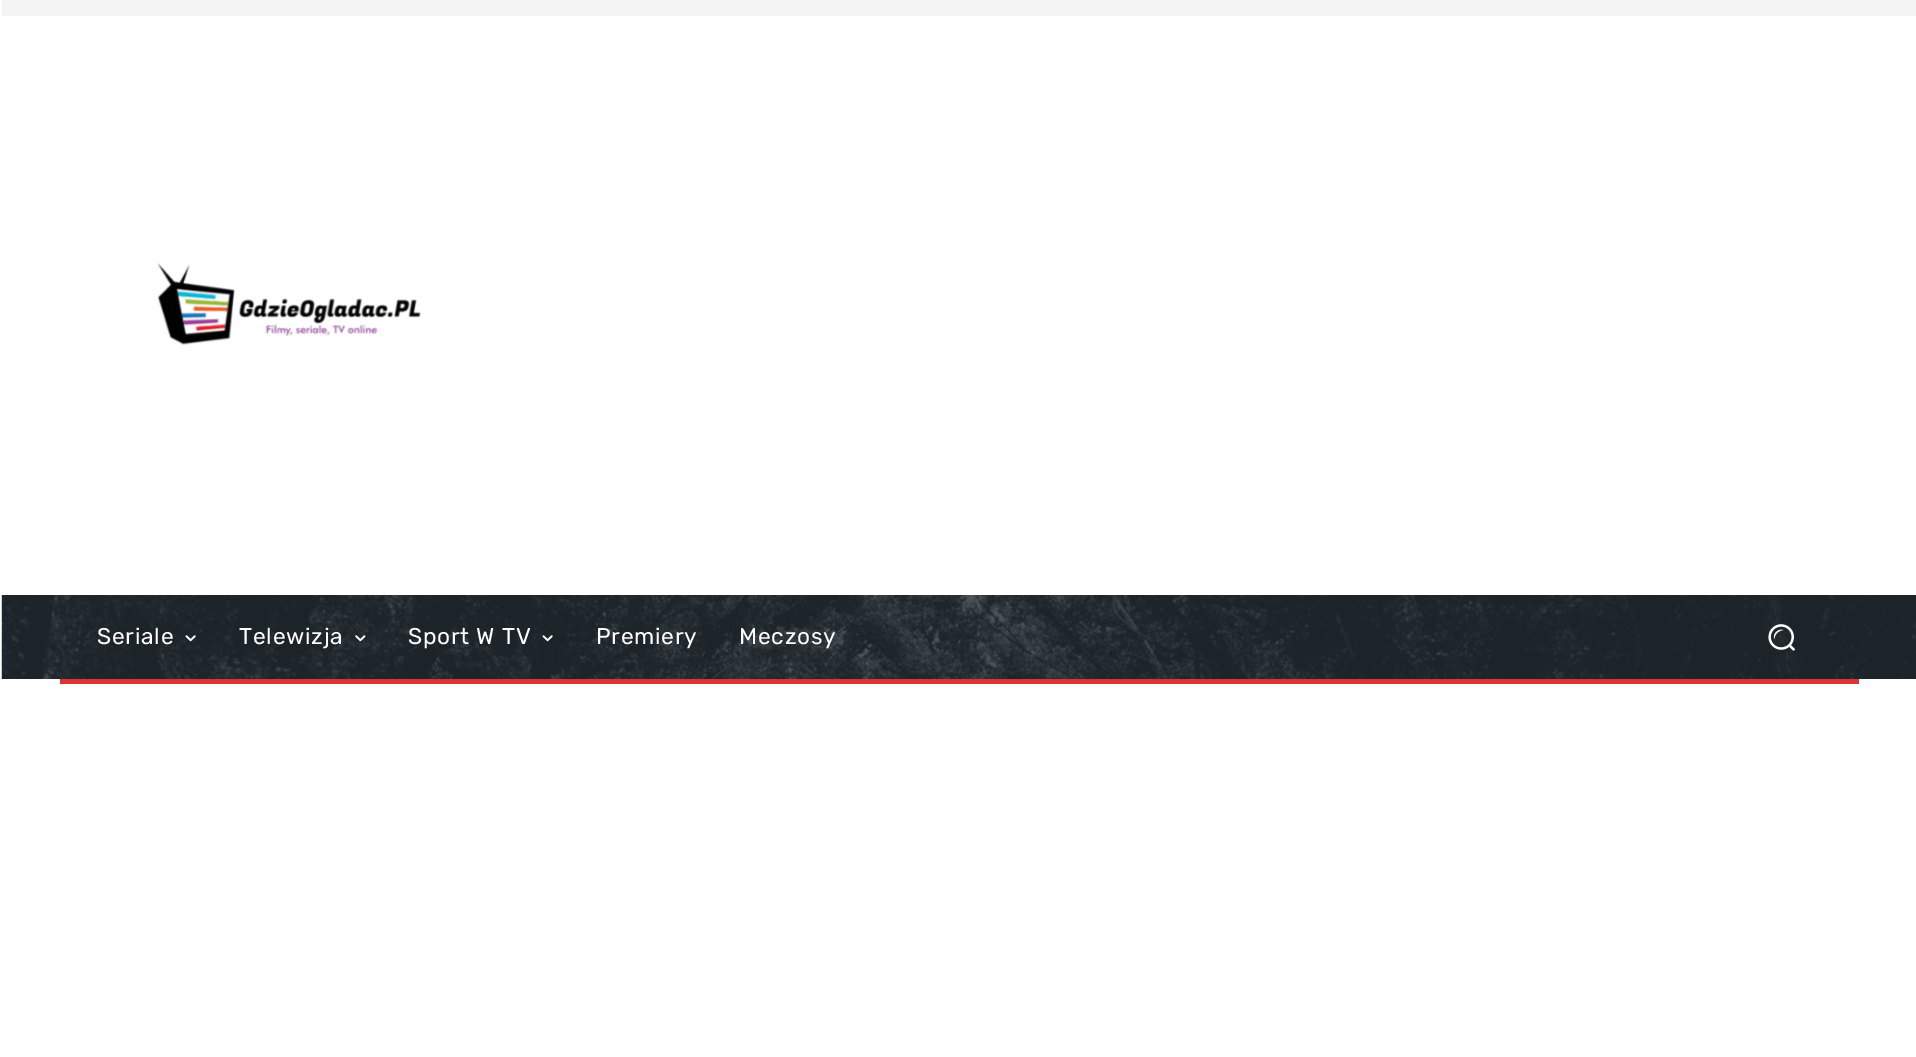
%!PS
<< /PageSize [1916 1057] >> setpagedevice
/mt/moveto load def
/co { dup -16 bitshift 255 div exch dup -8 bitshift 255 and 255 div exch 255 and 255 div setrgbcolor } def
/fn { [ exch dup neg 0 0 3 -1 roll 0 0 ] selectfont } def
/bx { co rectfill } def
/im { 5 dict begin { /h /w /y /x /name } { exch def } forall
  gsave x y translate w h scale
  w h 8 [w 0 0 h 0 0] name (r) file false 3 colorimage grestore end } def
0 1057 translate 1 -1 scale
4 setmiterlimit
0 0 1916 1057 16#FFFFFF bx
2 0 1914 16 16#F4F4F4 bx
(media/1.raw) 157 263 264 82 im
2 595 1914 84 16#232D35 bx
(media/2.raw) 1 595 1915 84 im
(media/3.raw) 185 635 11 7 im
(media/4.raw) 355 635 11 7 im
(media/5.raw) 542 635 11 7 im
(media/6.raw) 1768 624 28 27 im
60 679 1799 5 16#DD3333 bx
/Rubik-Regular 22.75 fn
16#FFFFFF co
97 644 mt .75 0 (Seriale) ashow
239 644 mt .75 0 (Telewizja) ashow
408 644 mt .75 0 (Sport W TV) ashow
596 644 mt .75 0 (Premiery) ashow
739 644 mt .75 0 (Meczosy) ashow
showpage
